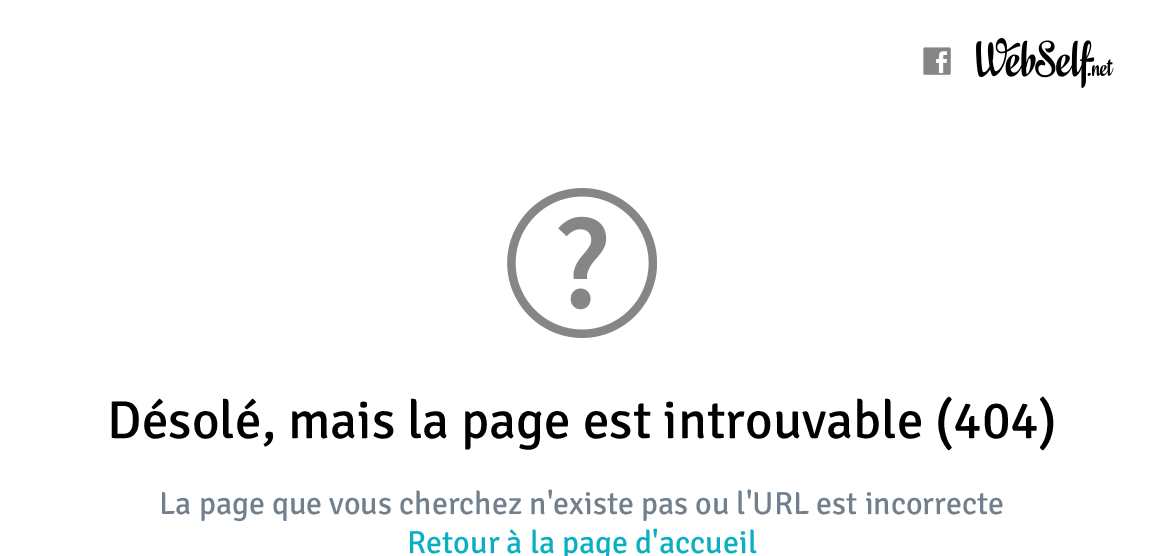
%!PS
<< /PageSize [1164 556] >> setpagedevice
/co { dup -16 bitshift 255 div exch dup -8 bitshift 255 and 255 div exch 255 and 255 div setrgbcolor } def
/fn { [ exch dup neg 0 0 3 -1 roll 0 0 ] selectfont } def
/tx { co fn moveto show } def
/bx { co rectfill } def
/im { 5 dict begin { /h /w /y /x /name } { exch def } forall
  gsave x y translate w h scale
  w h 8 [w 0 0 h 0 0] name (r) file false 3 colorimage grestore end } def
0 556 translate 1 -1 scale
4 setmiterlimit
0 0 1164 556 16#FFFFFF bx
(media/1.raw) 923 47 28 28 im
(media/2.raw) 976 38 138 50 im
(media/3.raw) 507 188 150 150 im
(Désolé, mais la page est introuvable \(404\)) 107 438 /Signika-Regular 53.3 16#000000 tx
(La page que vous cherchez n'existe pas ou l'URL est incorrecte) 159 514 /Signika-Regular 32 16#72808E tx
(Retour à la page d'accueil) 407 553 /Signika-Regular 32 16#0BAFC2 tx
showpage
